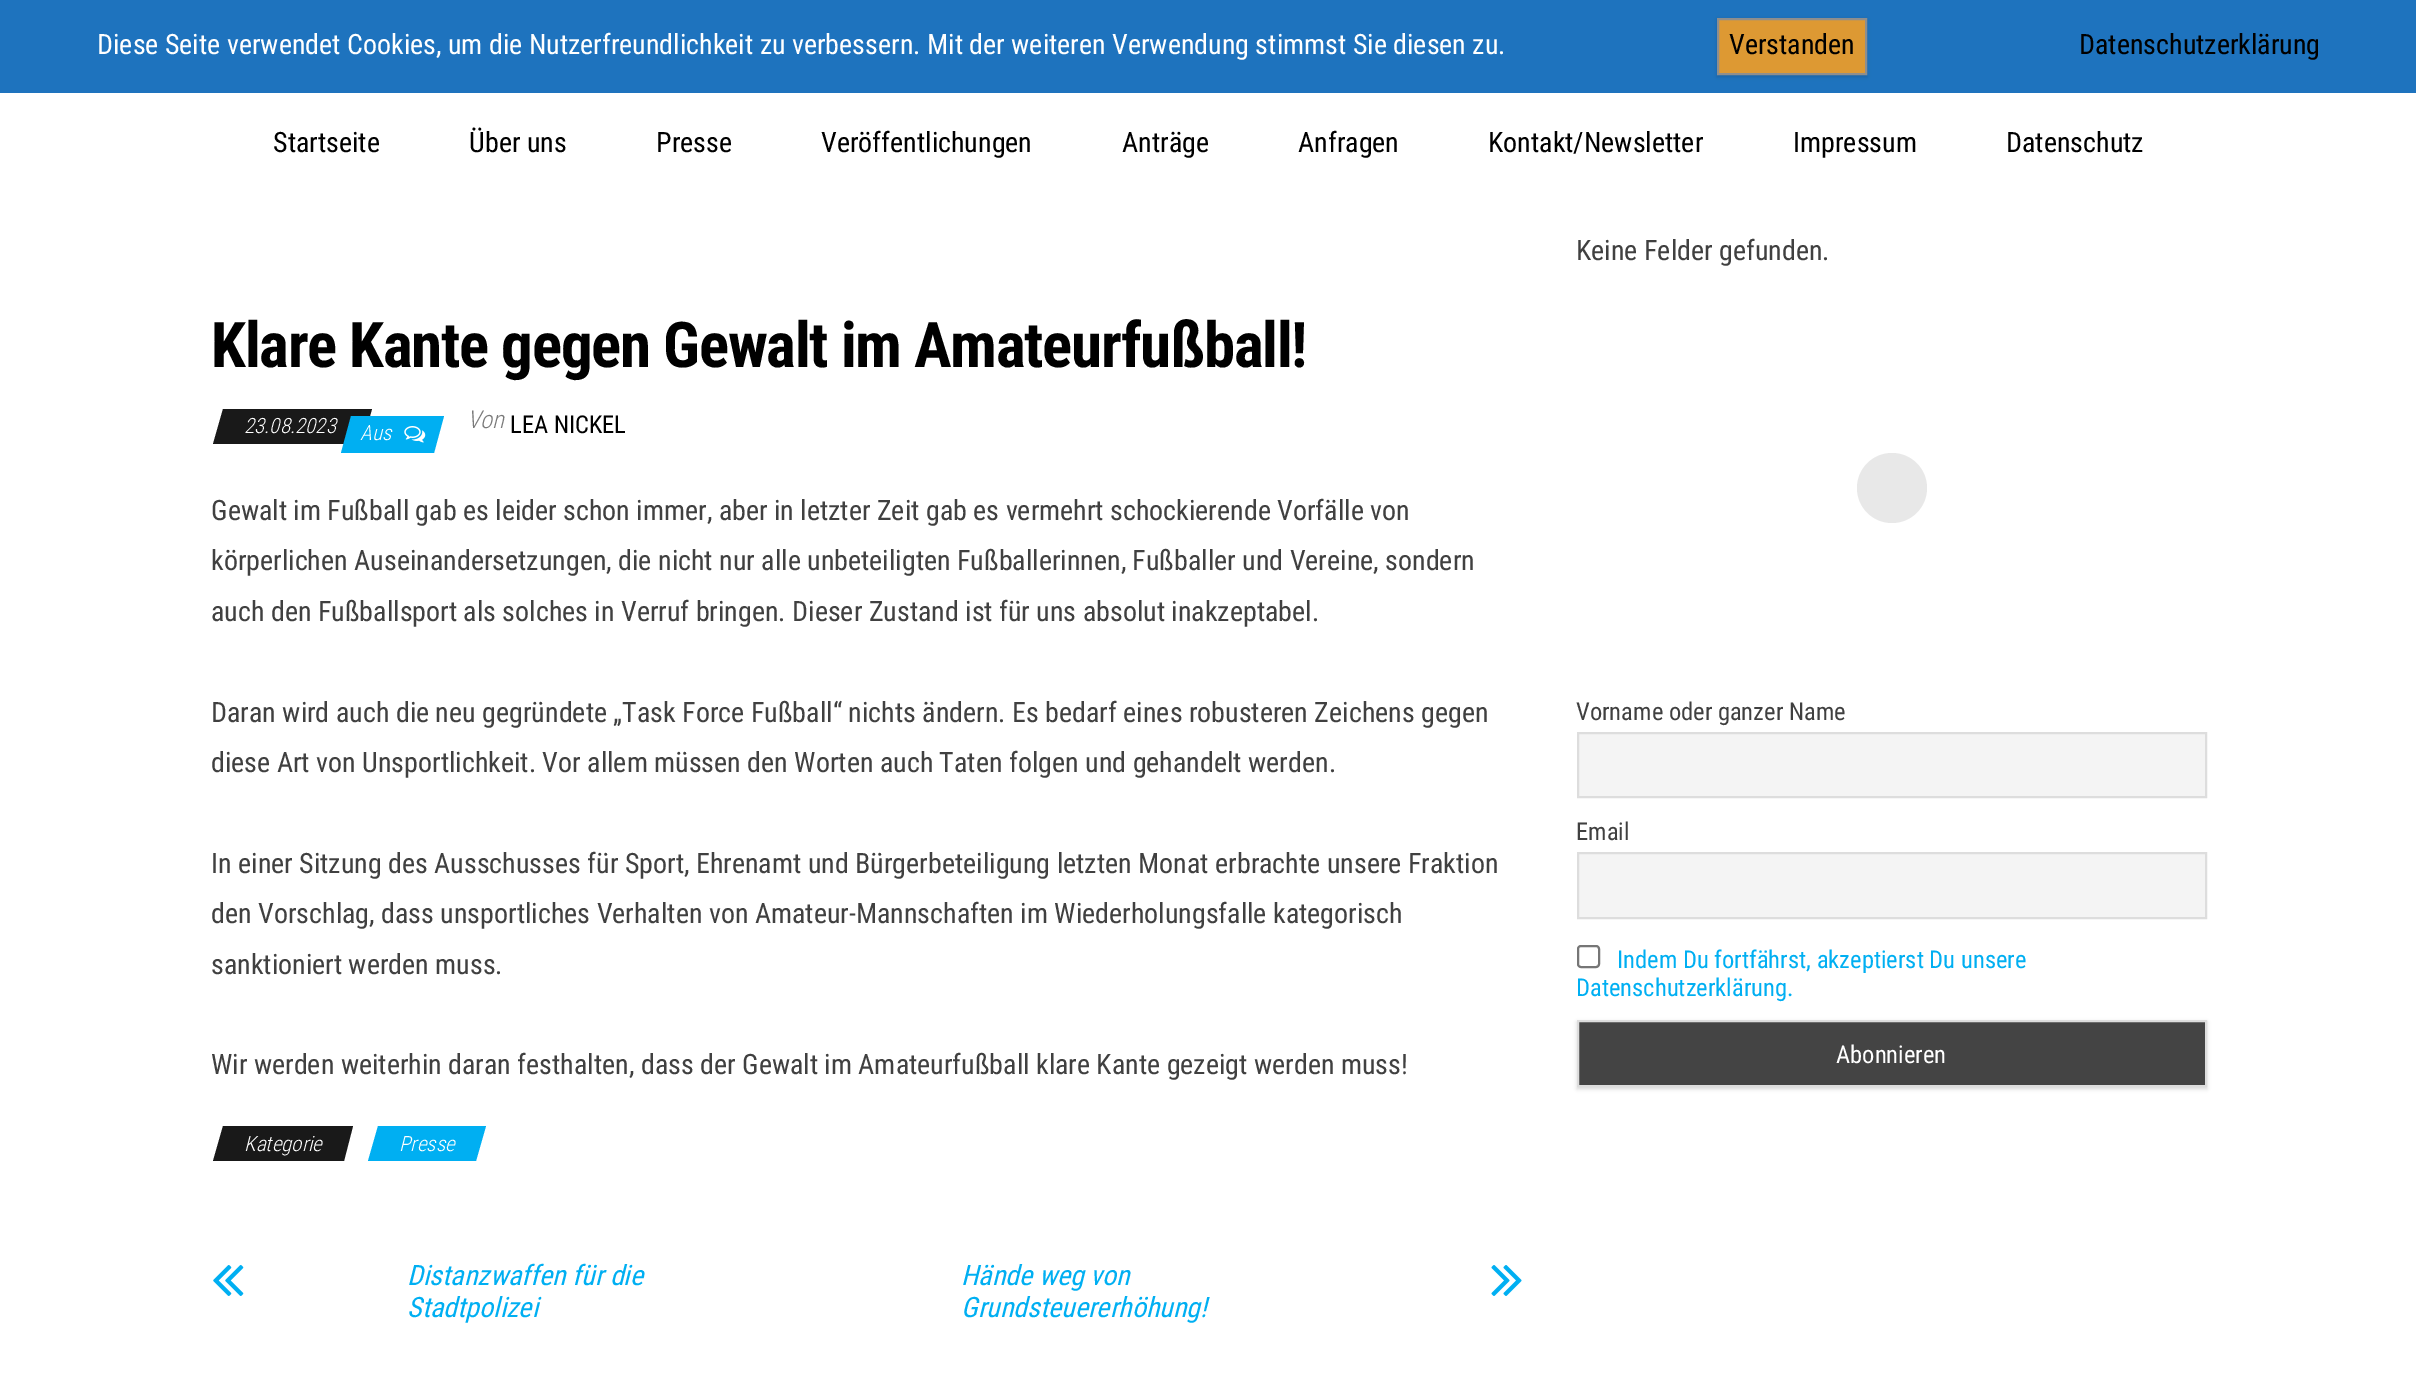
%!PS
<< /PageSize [2416 1398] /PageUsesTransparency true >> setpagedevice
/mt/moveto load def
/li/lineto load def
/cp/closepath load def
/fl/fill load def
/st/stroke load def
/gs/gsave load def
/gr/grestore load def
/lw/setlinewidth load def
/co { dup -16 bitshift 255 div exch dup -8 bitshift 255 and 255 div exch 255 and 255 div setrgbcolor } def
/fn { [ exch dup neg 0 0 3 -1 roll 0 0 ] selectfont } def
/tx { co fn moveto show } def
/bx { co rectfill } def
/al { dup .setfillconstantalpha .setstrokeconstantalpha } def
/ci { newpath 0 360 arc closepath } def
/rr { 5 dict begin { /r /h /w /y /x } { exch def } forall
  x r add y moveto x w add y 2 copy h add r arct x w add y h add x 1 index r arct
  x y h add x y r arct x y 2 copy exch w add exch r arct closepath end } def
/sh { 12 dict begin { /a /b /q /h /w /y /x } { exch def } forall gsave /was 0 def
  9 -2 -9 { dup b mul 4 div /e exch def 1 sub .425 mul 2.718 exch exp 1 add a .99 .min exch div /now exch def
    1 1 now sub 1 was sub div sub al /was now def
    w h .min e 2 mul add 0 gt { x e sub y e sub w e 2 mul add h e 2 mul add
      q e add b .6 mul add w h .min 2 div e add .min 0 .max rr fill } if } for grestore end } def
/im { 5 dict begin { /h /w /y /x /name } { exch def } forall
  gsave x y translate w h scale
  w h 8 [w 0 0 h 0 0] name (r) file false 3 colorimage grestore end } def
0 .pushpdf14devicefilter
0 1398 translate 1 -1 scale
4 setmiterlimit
0 0 2416 1398 16#FFFFFF bx
0 0 2416 93 16#1E73BE bx
16#000000 co
1717 19 150 58 0 2 .15 sh
16#DD9933 co
1718 19 mt 1866 19 li 1866 74 li 1718 74 li cp gs fl gr
16#8E8E8E co
2 lw
st
16#191919 co
223 409 mt 372 409 li 362 444 li 213 444 li cp fl
16#00AFF2 co
351 416 mt 444 416 li 434 453 li 341 453 li cp fl
(media/1.raw) 404 426 22 17 im
16#191919 co
223 1126 mt 353 1126 li 344 1161 li 213 1161 li cp fl
16#00AFF2 co
378 1126 mt 486 1126 li 476 1161 li 368 1161 li cp fl
(media/2.raw) 213 1265 31 31 im
(media/3.raw) 1491 1265 31 31 im
16#E8E8E8 co
1892 488 35 ci fl
16#F4F4F4 co
1578 733 mt 2206 733 li 2206 797 li 1578 797 li cp gs fl gr
16#DDDDDD co
st
16#F4F4F4 co
1578 853 mt 2206 853 li 2206 918 li 1578 918 li cp gs fl gr
16#DDDDDD co
st
16#767676 co
1578 946 21 21 3 rr st
16#000000 co
1577 1022 630 67 0 2 .15 sh
16#444444 co
1578 1021 mt 2206 1021 li 2206 1086 li 1578 1086 li cp gs fl gr
16#DDDDDD co
st
(Diese Seite verwendet Cookies, um die Nutzerfreundlichkeit zu verbessern. Mit der weiteren Verwendung stimmst Sie diesen zu.) 97 54 /RobotoCondensed-Regular 28 16#FFFFFF tx
(Verstanden) 1729 54 /RobotoCondensed-Regular 28 16#000000 tx
(Datenschutzerklärung) 2079 54 /RobotoCondensed-Regular 28 16#000000 tx
/RobotoCondensed-Bold 63 fn
211 367 mt -1.25 0 (Klare Kante gegen Gewalt im Amateurfußball!) ashow
(23.08.2023) 244 433 /RobotoCondensed-LightItalic 21 16#FFFFFF tx
(Aus) 360 440 /RobotoCondensed-LightItalic 21 16#FFFFFF tx
(Von) 467 428 /RobotoCondensed-LightItalic 24.5 16#797979 tx
(LEA NICKEL) 510 433 /RobotoCondensed-Regular 24.5 16#000000 tx
(Gewalt im Fußball gab es leider schon immer, aber in letzter Zeit gab es vermehrt schockierende Vorfälle von) 211 520 /RobotoCondensed-Regular 28 16#404040 tx
(körperlichen Auseinandersetzungen, die nicht nur alle unbeteiligten Fußballerinnen, Fußballer und Vereine, sondern) 211 570 /RobotoCondensed-Regular 28 16#404040 tx
(auch den Fußballsport als solches in Verruf bringen. Dieser Zustand ist für uns absolut inakzeptabel.) 211 621 /RobotoCondensed-Regular 28 16#404040 tx
(Daran wird auch die neu gegründete „Task Force Fußball“ nichts ändern. Es bedarf eines robusteren Zeichens gegen) 211 722 /RobotoCondensed-Regular 28 16#404040 tx
(diese Art von Unsportlichkeit. Vor allem müssen den Worten auch Taten folgen und gehandelt werden.) 211 772 /RobotoCondensed-Regular 28 16#404040 tx
(In einer Sitzung des Ausschusses für Sport, Ehrenamt und Bürgerbeteiligung letzten Monat erbrachte unsere Fraktion) 211 873 /RobotoCondensed-Regular 28 16#404040 tx
(den Vorschlag, dass unsportliches Verhalten von Amateur-Mannschaften im Wiederholungsfalle kategorisch) 211 923 /RobotoCondensed-Regular 28 16#404040 tx
(sanktioniert werden muss.) 211 974 /RobotoCondensed-Regular 28 16#404040 tx
(Wir werden weiterhin daran festhalten, dass der Gewalt im Amateurfußball klare Kante gezeigt werden muss!) 211 1074 /RobotoCondensed-Regular 28 16#404040 tx
(Kategorie) 244 1151 /RobotoCondensed-LightItalic 21 16#FFFFFF tx
(Presse) 399 1151 /RobotoCondensed-LightItalic 21 16#FFFFFF tx
(Distanzwaffen für die) 407 1285 /RobotoCondensed-Italic 28 16#00AFF2 tx
(Stadtpolizei) 407 1317 /RobotoCondensed-Italic 28 16#00AFF2 tx
(Hände weg von) 961 1285 /RobotoCondensed-Italic 28 16#00AFF2 tx
(Grundsteuererhöhung!) 961 1317 /RobotoCondensed-Italic 28 16#00AFF2 tx
(Keine Felder gefunden.) 1576 260 /RobotoCondensed-Regular 28 16#404040 tx
(Vorname oder ganzer Name) 1576 720 /RobotoCondensed-Regular 24.5 16#404040 tx
(Email) 1576 840 /RobotoCondensed-Regular 24.5 16#404040 tx
(Indem Du fortfährst, akzeptierst Du unsere) 1617 968 /RobotoCondensed-Regular 24.5 16#00AFF2 tx
(Datenschutzerklärung.) 1576 996 /RobotoCondensed-Regular 24.5 16#00AFF2 tx
(Abonnieren) 1836 1063 /RobotoCondensed-Regular 24.5 16#FFFFFF tx
(Startseite) 273 152 /RobotoCondensed-Regular 28 16#000000 tx
(Über uns) 469 152 /RobotoCondensed-Regular 28 16#000000 tx
(Presse) 656 152 /RobotoCondensed-Regular 28 16#000000 tx
(Veröffentlichungen) 821 152 /RobotoCondensed-Regular 28 16#000000 tx
(Anträge) 1122 152 /RobotoCondensed-Regular 28 16#000000 tx
(Anfragen) 1298 152 /RobotoCondensed-Regular 28 16#000000 tx
(Kontakt/Newsletter) 1488 152 /RobotoCondensed-Regular 28 16#000000 tx
(Impressum) 1793 152 /RobotoCondensed-Regular 28 16#000000 tx
(Datenschutz) 2006 152 /RobotoCondensed-Regular 28 16#000000 tx
.poppdf14devicefilter showpage
